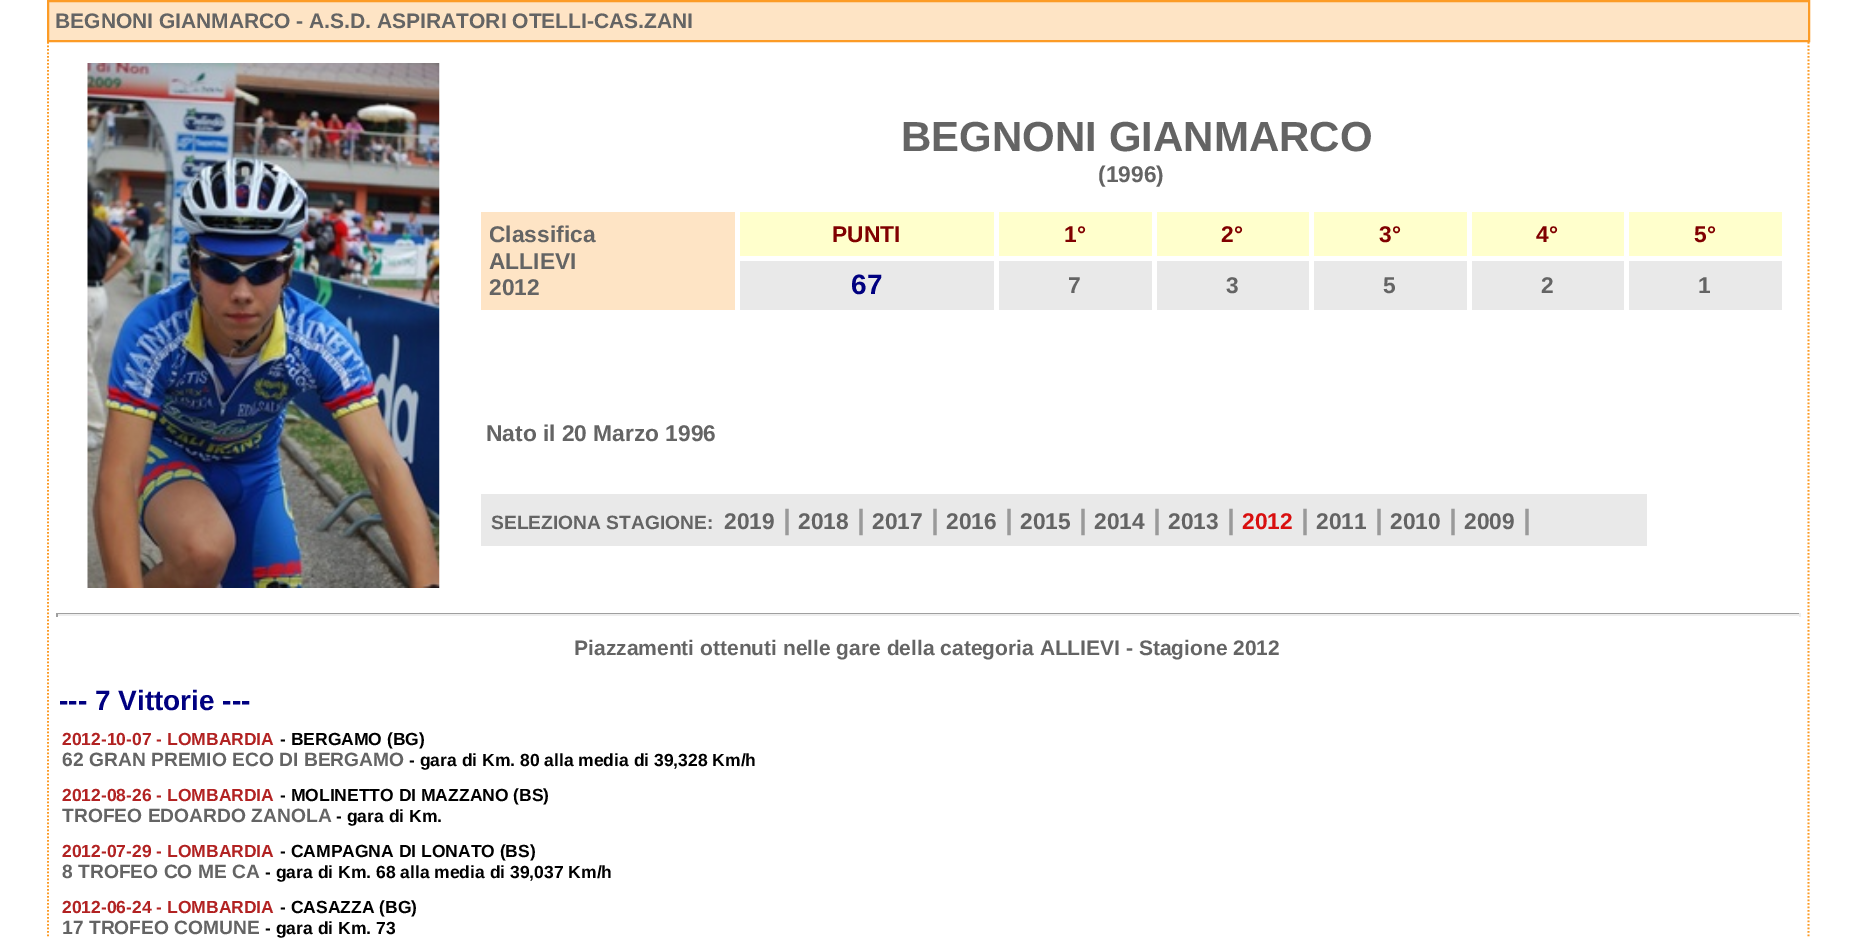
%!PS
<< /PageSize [1855 938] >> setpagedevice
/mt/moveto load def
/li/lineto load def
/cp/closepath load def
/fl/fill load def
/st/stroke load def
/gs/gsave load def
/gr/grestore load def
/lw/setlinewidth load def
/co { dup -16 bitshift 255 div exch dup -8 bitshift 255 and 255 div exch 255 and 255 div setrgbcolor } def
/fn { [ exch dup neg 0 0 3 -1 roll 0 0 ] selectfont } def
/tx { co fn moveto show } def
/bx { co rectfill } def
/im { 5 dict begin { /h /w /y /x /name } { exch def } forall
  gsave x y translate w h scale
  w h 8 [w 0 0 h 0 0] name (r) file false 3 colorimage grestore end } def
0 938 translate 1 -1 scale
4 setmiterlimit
0 0 1855 938 16#FFFFFF bx
16#FEE4C5 co
48 1 mt 1809 1 li 1809 41 li 48 41 li cp gs fl gr
16#FC9B26 co
2 lw
st
1.8 lw
[1.75 1.75] 0 setdash
1808.5 42 mt 1808.5 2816 li st
48 42 mt 48 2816 li st
(media/1.raw) 87 63 353 525 im
481 212 254 98 16#FEE4C5 bx
740 212 254 44 16#FFFFCC bx
999 212 153 44 16#FFFFCC bx
1157 212 152 44 16#FFFFCC bx
1314 212 153 44 16#FFFFCC bx
1472 212 152 44 16#FFFFCC bx
1629 212 153 44 16#FFFFCC bx
740 261 254 49 16#E9E9E9 bx
999 261 153 49 16#E9E9E9 bx
1157 261 152 49 16#E9E9E9 bx
1314 261 153 49 16#E9E9E9 bx
1472 261 152 49 16#E9E9E9 bx
1629 261 153 49 16#E9E9E9 bx
481 494 1166 52 16#E9E9E9 bx
56 613 1745 1 16#9F9F9F bx
1799 613 2 4 16#EEEEEE bx
56 614 1745 2 16#EEEEEE bx
56 613 2 4 16#9F9F9F bx
(BEGNONI GIANMARCO - A.S.D. ASPIRATORI OTELLI-CAS.ZANI) 55 28 /LiberationSans-Bold 21 16#646464 tx
(BEGNONI GIANMARCO) 901 151 /LiberationSans-Bold 42 16#646464 tx
(\(1996\)) 1098 182 /LiberationSans-Bold 22.75 16#646464 tx
(Classifica) 489 242 /LiberationSans-Bold 22.75 16#646464 tx
(ALLIEVI) 489 269 /LiberationSans-Bold 22.75 16#646464 tx
(2012) 489 295 /LiberationSans-Bold 22.75 16#646464 tx
(PUNTI) 832 242 /LiberationSans-Bold 22.75 16#800000 tx
(1°) 1064 242 /LiberationSans-Bold 22.75 16#800000 tx
(2°) 1221 242 /LiberationSans-Bold 22.75 16#800000 tx
(3°) 1379 242 /LiberationSans-Bold 22.75 16#800000 tx
(4°) 1536 242 /LiberationSans-Bold 22.75 16#800000 tx
(5°) 1694 242 /LiberationSans-Bold 22.75 16#800000 tx
(67) 851 294 /LiberationSans-Bold 28 16#000080 tx
(7) 1068 293 /LiberationSans-Bold 22.75 16#646464 tx
(3) 1226 293 /LiberationSans-Bold 22.75 16#646464 tx
(5) 1383 293 /LiberationSans-Bold 22.75 16#646464 tx
(2) 1541 293 /LiberationSans-Bold 22.75 16#646464 tx
(1) 1698 293 /LiberationSans-Bold 22.75 16#646464 tx
(Nato il 20 Marzo 1996) 486 441 /LiberationSans-Bold 22.75 16#646464 tx
(SELEZIONA STAGIONE:) 491 529 /LiberationSans-Bold 19.25 16#646464 tx
(2019) 724 529 /LiberationSans-Bold 22.75 16#646464 tx
(|) 783 529 /LiberationSans-Bold 28 16#999999 tx
(2018) 798 529 /LiberationSans-Bold 22.75 16#646464 tx
(|) 857 529 /LiberationSans-Bold 28 16#999999 tx
(2017) 872 529 /LiberationSans-Bold 22.75 16#646464 tx
(|) 931 529 /LiberationSans-Bold 28 16#999999 tx
(2016) 946 529 /LiberationSans-Bold 22.75 16#646464 tx
(|) 1005 529 /LiberationSans-Bold 28 16#999999 tx
(2015) 1020 529 /LiberationSans-Bold 22.75 16#646464 tx
(|) 1079 529 /LiberationSans-Bold 28 16#999999 tx
(2014) 1094 529 /LiberationSans-Bold 22.75 16#646464 tx
(|) 1153 529 /LiberationSans-Bold 28 16#999999 tx
(2013) 1168 529 /LiberationSans-Bold 22.75 16#646464 tx
(|) 1227 529 /LiberationSans-Bold 28 16#999999 tx
(2012) 1242 529 /LiberationSans-Bold 22.75 16#D90F0F tx
(|) 1301 529 /LiberationSans-Bold 28 16#999999 tx
(2011) 1316 529 /LiberationSans-Bold 22.75 16#646464 tx
(|) 1375 529 /LiberationSans-Bold 28 16#999999 tx
(2010) 1390 529 /LiberationSans-Bold 22.75 16#646464 tx
(|) 1449 529 /LiberationSans-Bold 28 16#999999 tx
(2009) 1464 529 /LiberationSans-Bold 22.75 16#646464 tx
(|) 1523 529 /LiberationSans-Bold 28 16#999999 tx
(Piazzamenti ottenuti nelle gare della categoria ALLIEVI - Stagione 2012) 574 655 /LiberationSans-Bold 21 16#646464 tx
(--- 7 Vittorie ---) 59 710 /LiberationSans-Bold 28 16#000080 tx
(2012-10-07 - LOMBARDIA) 62 745 /LiberationSans-Bold 17.5 16#B22222 tx
(- BERGAMO \(BG\)) 280 745 /LiberationSans-Bold 17.5 16#000000 tx
(62 GRAN PREMIO ECO DI BERGAMO) 62 766 /LiberationSans-Bold 19.25 16#646464 tx
(- gara di Km. 80 alla media di 39,328 Km/h) 409 766 /LiberationSans-Bold 17.5 16#000000 tx
(2012-08-26 - LOMBARDIA) 62 801 /LiberationSans-Bold 17.5 16#B22222 tx
(- MOLINETTO DI MAZZANO \(BS\)) 280 801 /LiberationSans-Bold 17.5 16#000000 tx
(TROFEO EDOARDO ZANOLA) 62 822 /LiberationSans-Bold 19.25 16#646464 tx
(- gara di Km.) 336 822 /LiberationSans-Bold 17.5 16#000000 tx
(2012-07-29 - LOMBARDIA) 62 857 /LiberationSans-Bold 17.5 16#B22222 tx
(- CAMPAGNA DI LONATO \(BS\)) 280 857 /LiberationSans-Bold 17.5 16#000000 tx
(8 TROFEO CO ME CA) 62 878 /LiberationSans-Bold 19.25 16#646464 tx
(- gara di Km. 68 alla media di 39,037 Km/h) 265 878 /LiberationSans-Bold 17.5 16#000000 tx
(2012-06-24 - LOMBARDIA) 62 913 /LiberationSans-Bold 17.5 16#B22222 tx
(- CASAZZA \(BG\)) 280 913 /LiberationSans-Bold 17.5 16#000000 tx
(17 TROFEO COMUNE) 62 934 /LiberationSans-Bold 19.25 16#646464 tx
(- gara di Km. 73) 265 934 /LiberationSans-Bold 17.5 16#000000 tx
showpage
